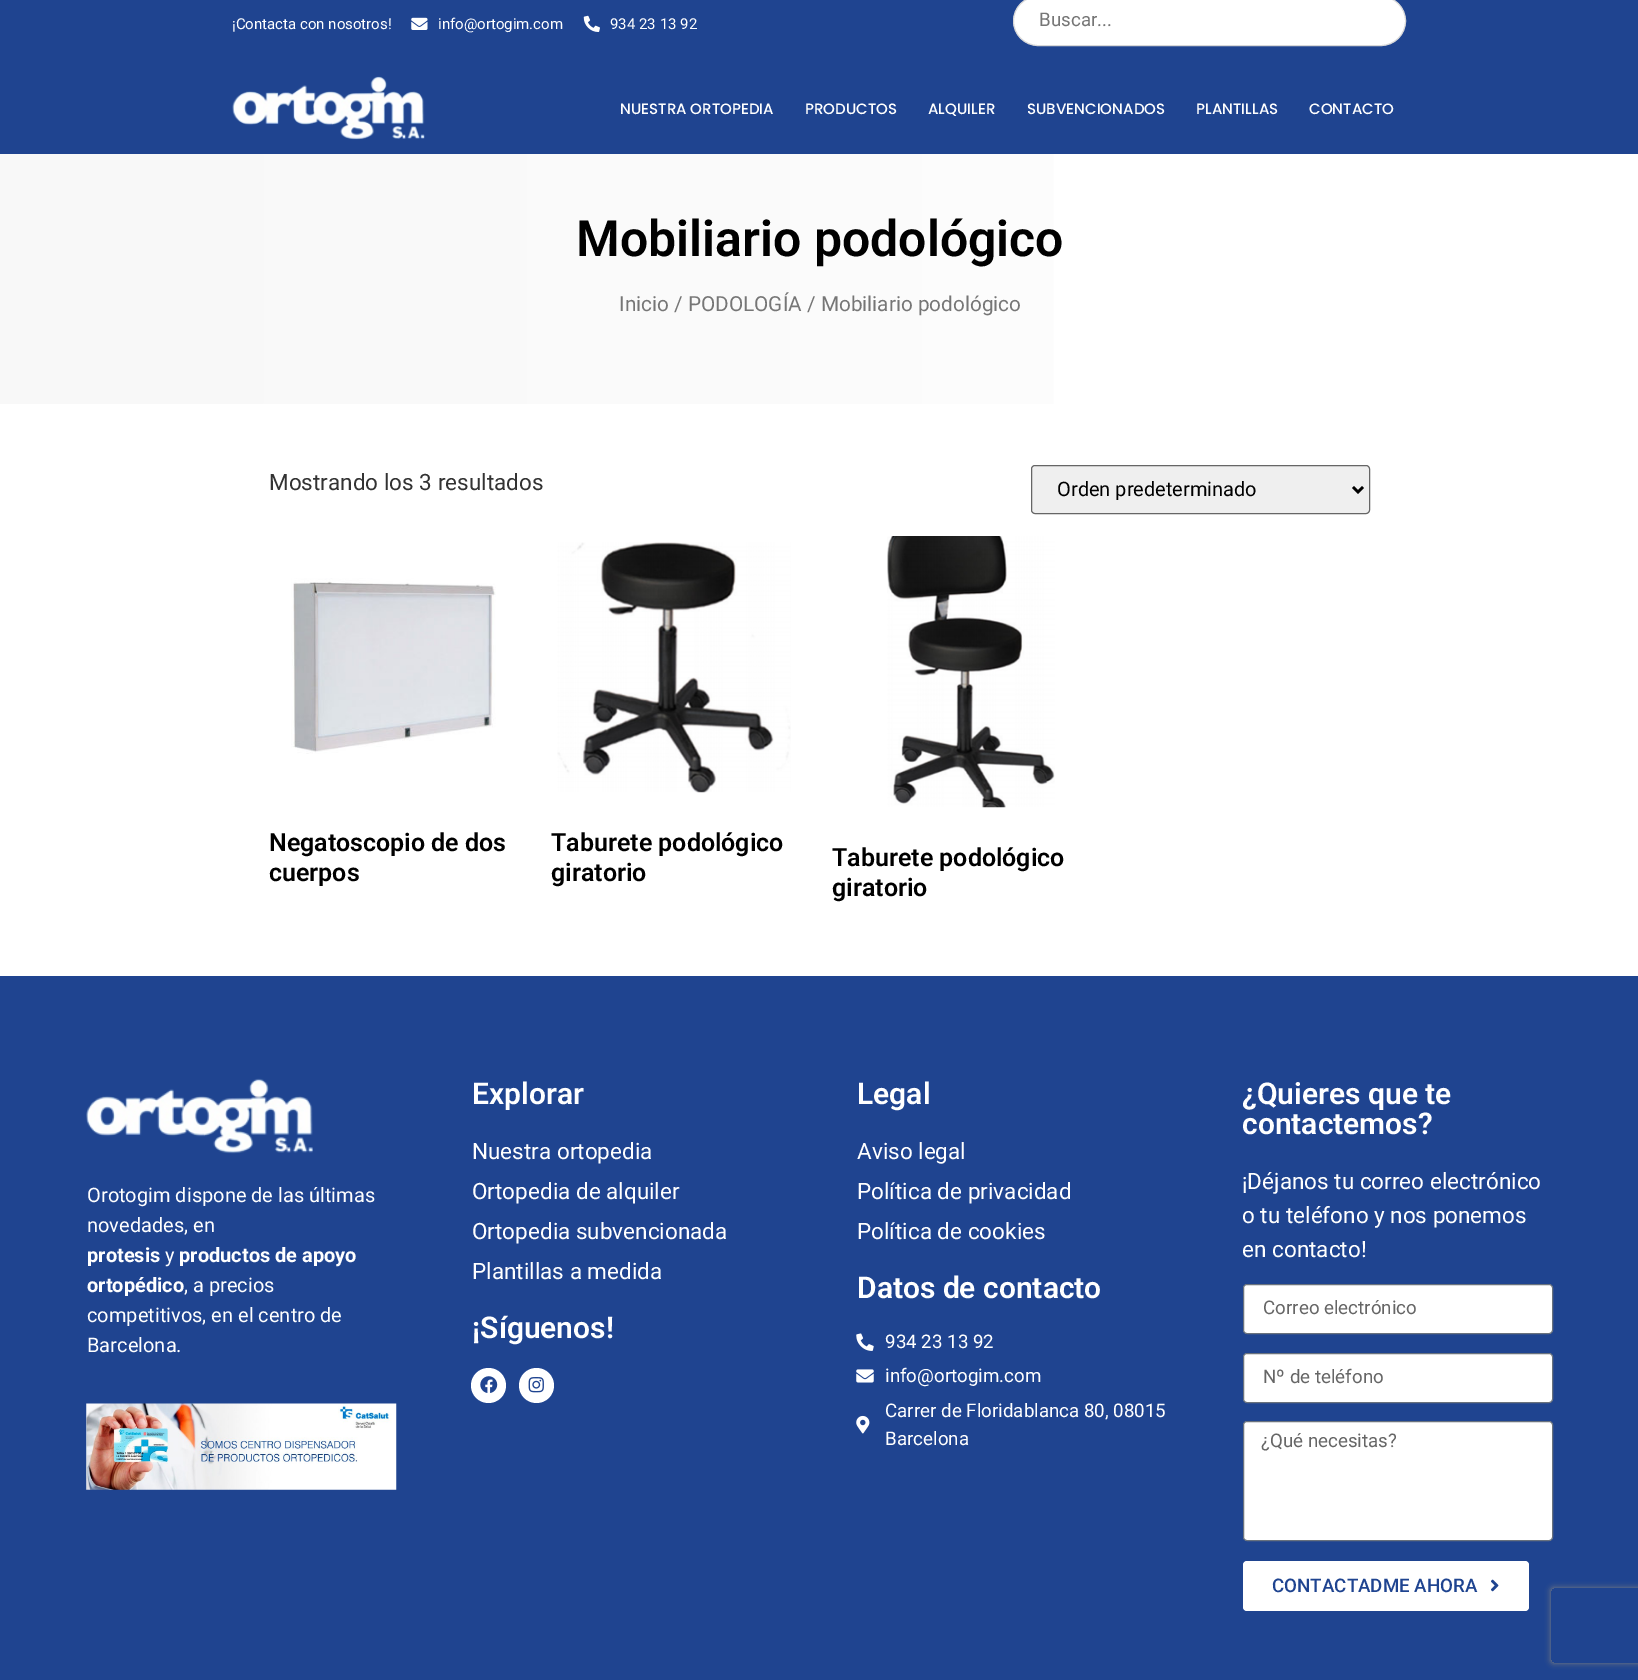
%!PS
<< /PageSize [1638 1680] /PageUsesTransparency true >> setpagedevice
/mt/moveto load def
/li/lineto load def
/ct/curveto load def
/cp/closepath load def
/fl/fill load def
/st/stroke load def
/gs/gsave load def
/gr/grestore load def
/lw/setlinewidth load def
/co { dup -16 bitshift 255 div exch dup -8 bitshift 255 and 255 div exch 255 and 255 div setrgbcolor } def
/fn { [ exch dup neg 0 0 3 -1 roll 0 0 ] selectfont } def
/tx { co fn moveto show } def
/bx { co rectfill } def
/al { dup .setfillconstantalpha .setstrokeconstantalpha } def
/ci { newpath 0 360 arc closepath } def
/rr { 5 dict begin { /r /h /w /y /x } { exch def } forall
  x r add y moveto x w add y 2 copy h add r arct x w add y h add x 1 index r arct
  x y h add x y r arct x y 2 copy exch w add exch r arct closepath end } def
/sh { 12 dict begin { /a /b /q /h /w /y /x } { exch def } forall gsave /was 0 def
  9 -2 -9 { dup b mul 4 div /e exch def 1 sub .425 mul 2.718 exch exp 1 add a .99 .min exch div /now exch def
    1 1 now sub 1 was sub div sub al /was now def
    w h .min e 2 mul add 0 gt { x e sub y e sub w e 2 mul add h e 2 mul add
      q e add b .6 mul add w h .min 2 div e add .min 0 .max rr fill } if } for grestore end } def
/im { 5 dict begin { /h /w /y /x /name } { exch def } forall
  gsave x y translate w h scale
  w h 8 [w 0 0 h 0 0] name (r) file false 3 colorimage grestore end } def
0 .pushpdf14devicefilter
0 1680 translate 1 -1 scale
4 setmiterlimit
0 0 1638 1680 16#FFFFFF bx
0 0 1638 154 16#1F4490 bx
(media/1.raw) 411 17 17 13 im
(media/2.raw) 583 15 17 17 im
16#FFFFFF co
1013.5 -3.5 392 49 24.5 rr gs fl gr
16#D8D8D8 co
st
(media/3.raw) 232 76 193 64 im
gs 0 154 mt 1054 154 li 1054 404 li 0 404 li cp clip newpath
<< /ShadingType 2 /ColorSpace /DeviceRGB /Coords [0 279 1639 279] /Extend [true true] /Function << /FunctionType 2 /Domain [0 1] /C0 [.973 .973 .973] /C1 [1 1 1] /N 1 >> >> shfill gr
16#EFEFEF co
1031.5 465.5 338 48 3.5 rr gs fl gr
16#666666 co
st
16#000000 co
2.5 lw
1353 487 mt 1358 492 li 1363 487 li st
(media/4.raw) 291 578 205 176 im
(media/5.raw) 557 542 234 251 im
(media/6.raw) 887 536 168 272 im
0 976 1638 704 16#1F4490 bx
(media/7.raw) 86 1078 227 76 im
(media/8.raw) 86 1403 311 87 im
16#FFFFFF co
488.5 1385.5 17.5 ci fl
(media/9.raw) 480 1376 18 17 im
536.5 1385.5 17.5 ci fl
(media/10.raw) 528 1377 16 16 im
(media/11.raw) 856 1333 18 18 im
(media/12.raw) 856 1369 18 14 im
(media/13.raw) 856 1415 14 19 im
1243.5 1284.5 309 49 3.5 rr gs fl gr
16#69727D co
1 lw
st
16#FFFFFF co
1243.5 1353.5 309 49 3.5 rr gs fl gr
16#69727D co
st
16#FFFFFF co
1243.5 1421.5 309 119 3.5 rr gs fl gr
16#69727D co
st
16#FFFFFF co
1243 1561 286 50 4 rr fl
(media/14.raw) 1491 1579 8 13 im
gs
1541 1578 mt 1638 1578 li 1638 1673 li 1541 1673 li cp 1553.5 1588 mt 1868.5 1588 li 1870 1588 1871 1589 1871 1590.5 ct 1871 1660.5 li 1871 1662 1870 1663 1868.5 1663 ct 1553.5 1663 li 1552 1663 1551 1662 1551 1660.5 ct 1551 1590.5 li 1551 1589 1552 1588 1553.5 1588 ct cp eoclip newpath
16#808080 co
1551 1588 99 75 2.5 3 1 sh
gr
(¡Contacta con nosotros!) 232 29 /Roboto-Regular 15 16#FFFFFF tx
(info@ortogim.com) 438 29 /Roboto-Regular 15 16#FFFFFF tx
(934 23 13 92) 610 29 /Roboto-Regular 15 16#FFFFFF tx
(Buscar...) 1039 26 /Roboto-Regular 18.75 16#767676 tx
(NUESTRA ORTOPEDIA) 620 114 /Poppins-Medium 15 16#FFFFFF tx
(PRODUCTOS) 805 114 /Poppins-Medium 15 16#FFFFFF tx
(ALQUILER) 928 114 /Poppins-Medium 15 16#FFFFFF tx
(SUBVENCIONADOS) 1027 114 /Poppins-Medium 15 16#FFFFFF tx
(PLANTILLAS) 1196 114 /Poppins-Medium 15 16#FFFFFF tx
(CONTACTO) 1309 114 /Poppins-Medium 15 16#FFFFFF tx
(Mobiliario podológico) 576 256 /Roboto-SemiBold 50 16#000000 tx
(Inicio / PODOLOGÍA / Mobiliario podológico) 619 311 /Roboto-Regular 20.75 16#767676 tx
(Mostrando los 3 resultados) 269 490 /Roboto-Regular 22.5 16#333333 tx
(Orden predeterminado) 1057 496 /Roboto-Regular 20 16#000000 tx
(Negatoscopio de dos) 269 851 /Roboto-SemiBold 25 16#000000 tx
(cuerpos) 269 881 /Roboto-SemiBold 25 16#000000 tx
(Taburete podológico) 551 851 /Roboto-SemiBold 25 16#000000 tx
(giratorio) 551 881 /Roboto-SemiBold 25 16#000000 tx
(Taburete podológico) 832 866 /Roboto-SemiBold 25 16#000000 tx
(giratorio) 832 896 /Roboto-SemiBold 25 16#000000 tx
(Orotogim dispone de las últimas) 87 1202 /Roboto-Regular 20 16#FFFFFF tx
(novedades, en) 87 1232 /Roboto-Regular 20 16#FFFFFF tx
(protesis) 87 1262 /Roboto-Bold 20 16#FFFFFF tx
(y) 165 1262 /Roboto-Regular 20 16#FFFFFF tx
(productos de apoyo) 179 1262 /Roboto-Bold 20 16#FFFFFF tx
(ortopédico) 87 1292 /Roboto-Bold 20 16#FFFFFF tx
(, a precios) 184 1292 /Roboto-Regular 20 16#FFFFFF tx
(competitivos, en el centro de) 87 1322 /Roboto-Regular 20 16#FFFFFF tx
(Barcelona.) 87 1352 /Roboto-Regular 20 16#FFFFFF tx
(Explorar) 472 1104 /Roboto-SemiBold 30 16#FFFFFF tx
(Nuestra ortopedia) 472 1159 /Roboto-Regular 22.5 16#FFFFFF tx
(Ortopedia de alquiler) 472 1199 /Roboto-Regular 22.5 16#FFFFFF tx
(Ortopedia subvencionada) 472 1239 /Roboto-Regular 22.5 16#FFFFFF tx
(Plantillas a medida) 472 1279 /Roboto-Regular 22.5 16#FFFFFF tx
(¡Síguenos!) 472 1338 /Roboto-SemiBold 30 16#FFFFFF tx
(Legal) 857 1104 /Roboto-SemiBold 30 16#FFFFFF tx
(Aviso legal) 857 1159 /Roboto-Regular 22.5 16#FFFFFF tx
(Política de privacidad) 857 1199 /Roboto-Regular 22.5 16#FFFFFF tx
(Política de cookies) 857 1239 /Roboto-Regular 22.5 16#FFFFFF tx
(Datos de contacto) 857 1298 /Roboto-SemiBold 30 16#FFFFFF tx
(934 23 13 92) 885 1348 /Roboto-Regular 18.75 16#FFFFFF tx
(info@ortogim.com) 885 1382 /Roboto-Regular 18.75 16#FFFFFF tx
(Carrer de Floridablanca 80, 08015) 885 1417 /Roboto-Regular 18.75 16#FFFFFF tx
(Barcelona) 885 1445 /Roboto-Regular 18.75 16#FFFFFF tx
(¿Quieres que te) 1242 1104 /Roboto-SemiBold 30 16#FFFFFF tx
(contactemos?) 1242 1134 /Roboto-SemiBold 30 16#FFFFFF tx
(¡Déjanos tu correo electrónico) 1242 1189 /Roboto-Regular 22.5 16#FFFFFF tx
(o tu teléfono y nos ponemos) 1242 1223 /Roboto-Regular 22.5 16#FFFFFF tx
(en contacto!) 1242 1257 /Roboto-Regular 22.5 16#FFFFFF tx
(Correo electrónico) 1263 1314 /Roboto-Regular 18.75 16#666666 tx
(Nº de teléfono) 1263 1383 /Roboto-Regular 18.75 16#666666 tx
(¿Qué necesitas?) 1261 1447 /Roboto-Regular 18.75 16#666666 tx
(CONTACTADME AHORA) 1272 1592 /Roboto-Medium 18.75 16#1F4490 tx
.poppdf14devicefilter showpage
